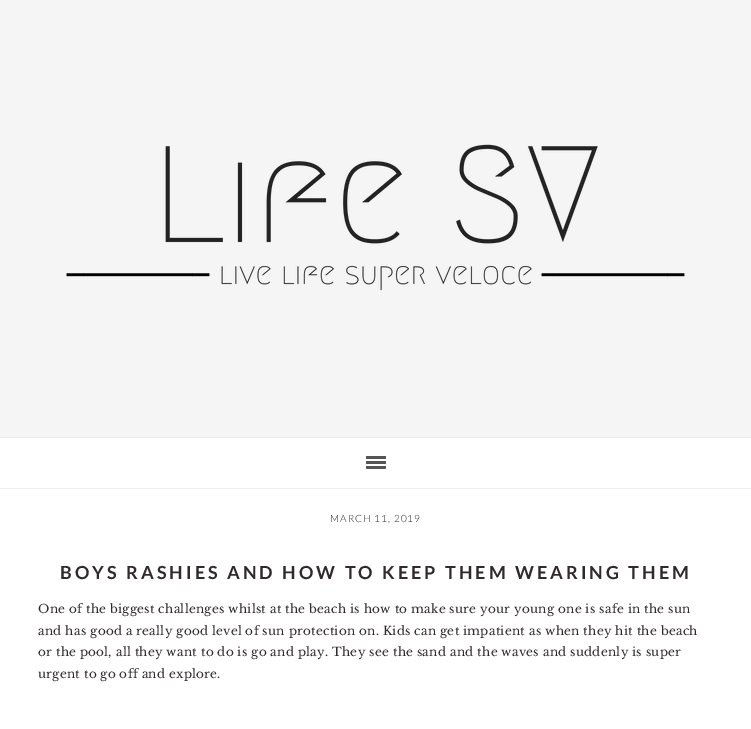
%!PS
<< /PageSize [751 729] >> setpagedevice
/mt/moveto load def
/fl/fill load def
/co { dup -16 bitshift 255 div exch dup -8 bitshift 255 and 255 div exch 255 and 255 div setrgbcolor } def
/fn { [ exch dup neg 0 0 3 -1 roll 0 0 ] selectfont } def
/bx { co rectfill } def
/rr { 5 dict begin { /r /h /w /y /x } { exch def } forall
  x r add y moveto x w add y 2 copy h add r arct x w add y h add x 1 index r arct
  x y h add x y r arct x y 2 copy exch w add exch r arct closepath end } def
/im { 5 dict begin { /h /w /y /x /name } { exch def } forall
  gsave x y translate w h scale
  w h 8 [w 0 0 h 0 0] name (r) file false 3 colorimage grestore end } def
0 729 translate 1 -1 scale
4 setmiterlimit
0 0 751 729 16#FFFFFF bx
0 0 751 437 16#F5F5F5 bx
(media/1.raw) 66 144 619 147 im
0 437 751 1 16#EEEEEE bx
0 488 751 1 16#EEEEEE bx
16#555555 co
366 461 20 3 1 rr fl
366 456 20 3 1 rr fl
366 466 20 3 1 rr fl
/Lato-Light 10 fn
16#302A2C co
330 522 mt 1 0 (MARCH 11, 2019) ashow
/Lato-Bold 18 fn
60 579 mt 3 0 (BOYS RASHIES AND HOW TO KEEP THEM WEARING THEM) ashow
/LibreBaskerville-Regular 12 fn
38 613 mt .24 0 (One of the biggest challenges whilst at the beach is how to make sure your young one is safe in the sun) ashow
38 635 mt .24 0 (and has good a really good level of sun protection on. Kids can get impatient as when they hit the beach) ashow
38 656 mt .24 0 (or the pool, all they want to do is go and play. They see the sand and the waves and suddenly is super) ashow
38 678 mt .24 0 (urgent to go off and explore.) ashow
showpage
